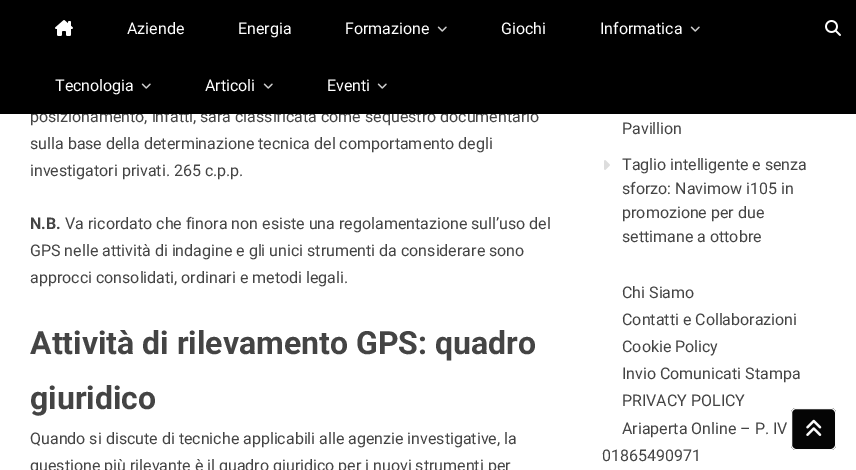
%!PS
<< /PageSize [856 470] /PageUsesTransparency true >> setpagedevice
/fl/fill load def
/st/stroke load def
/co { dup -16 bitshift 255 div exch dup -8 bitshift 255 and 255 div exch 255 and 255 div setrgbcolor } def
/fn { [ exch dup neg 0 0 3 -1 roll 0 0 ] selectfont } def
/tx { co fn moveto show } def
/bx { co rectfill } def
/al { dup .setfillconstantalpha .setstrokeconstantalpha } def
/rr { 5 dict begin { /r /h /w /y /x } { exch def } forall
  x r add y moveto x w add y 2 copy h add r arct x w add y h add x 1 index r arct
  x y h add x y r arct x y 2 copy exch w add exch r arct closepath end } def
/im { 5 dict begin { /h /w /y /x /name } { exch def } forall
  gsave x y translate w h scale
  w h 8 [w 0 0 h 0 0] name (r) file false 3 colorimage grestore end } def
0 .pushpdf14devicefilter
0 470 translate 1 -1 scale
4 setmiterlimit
0 0 856 470 16#FFFFFF bx
(media/4.raw) 604 160 6 10 im
0.98 al
16#000000 co
791 408 45 42 5 rr fl
16#FFFFFF co
791.5 408.5 44 41 4.5 rr st
1 al
(media/5.raw) 806 419 16 17 im
(posizionamento, infatti, sarà classificata come sequestro documentario) 30 122 /Roboto-Regular 16 16#444444 tx
0 0 856 114 16#000000 bx
(media/3.raw) 825 20 16 16 im
(media/2.raw) 377 83 10 6 im
(Eventi) 327 91 /Roboto-Regular 16 16#FFFFFF tx
(media/2.raw) 263 83 10 6 im
(Articoli) 205 91 /Roboto-Regular 16 16#FFFFFF tx
(media/2.raw) 141 83 10 6 im
(Tecnologia) 55 91 /Roboto-Regular 16 16#FFFFFF tx
(media/2.raw) 690 26 10 6 im
(Informatica) 600 34 /Roboto-Regular 16 16#FFFFFF tx
(Giochi) 501 34 /Roboto-Regular 16 16#FFFFFF tx
(media/2.raw) 437 26 10 6 im
(Formazione) 345 34 /Roboto-Regular 16 16#FFFFFF tx
(Energia) 238 34 /Roboto-Regular 16 16#FFFFFF tx
(Aziende) 127 34 /Roboto-Regular 16 16#FFFFFF tx
(media/1.raw) 55 20 18 16 im
(sulla base della determinazione tecnica del comportamento degli) 30 149 /Roboto-Regular 16 16#444444 tx
(investigatori privati. 265 c.p.p.) 30 176 /Roboto-Regular 16 16#444444 tx
(N.B.) 30 229 /Roboto-Bold 16 16#444444 tx
(Va ricordato che finora non esiste una regolamentazione sull’uso del) 65 229 /Roboto-Regular 16 16#444444 tx
(GPS nelle attività di indagine e gli unici strumenti da considerare sono) 30 256 /Roboto-Regular 16 16#444444 tx
(approcci consolidati, ordinari e metodi legali.) 30 283 /Roboto-Regular 16 16#444444 tx
(Attività di rilevamento GPS: quadro) 30 354 /Roboto-Bold 32 16#444444 tx
(giuridico) 30 409 /Roboto-Bold 32 16#444444 tx
(Quando si discute di tecniche applicabili alle agenzie investigative, la) 30 444 /Roboto-Regular 16 16#444444 tx
(questione più rilevante è il quadro giuridico per i nuovi strumenti per) 30 471 /Roboto-Regular 16 16#444444 tx
(Pavillion) 622 134 /Roboto-Regular 16 16#444444 tx
(Taglio intelligente e senza) 622 170 /Roboto-Regular 16 16#444444 tx
(sforzo: Navimow i105 in) 622 194 /Roboto-Regular 16 16#444444 tx
(promozione per due) 622 218 /Roboto-Regular 16 16#444444 tx
(settimane a ottobre) 622 242 /Roboto-Regular 16 16#444444 tx
(Chi Siamo) 622 298 /Roboto-Regular 16 16#444444 tx
(Contatti e Collaborazioni) 622 325 /Roboto-Regular 16 16#444444 tx
(Cookie Policy) 622 352 /Roboto-Regular 16 16#444444 tx
(Invio Comunicati Stampa) 622 379 /Roboto-Regular 16 16#444444 tx
(PRIVACY POLICY) 622 406 /Roboto-Regular 16 16#444444 tx
(Ariaperta Online – P. IV) 622 434 /Roboto-Regular 16 16#444444 tx
(01865490971) 602 461 /Roboto-Regular 16 16#444444 tx
.poppdf14devicefilter showpage
